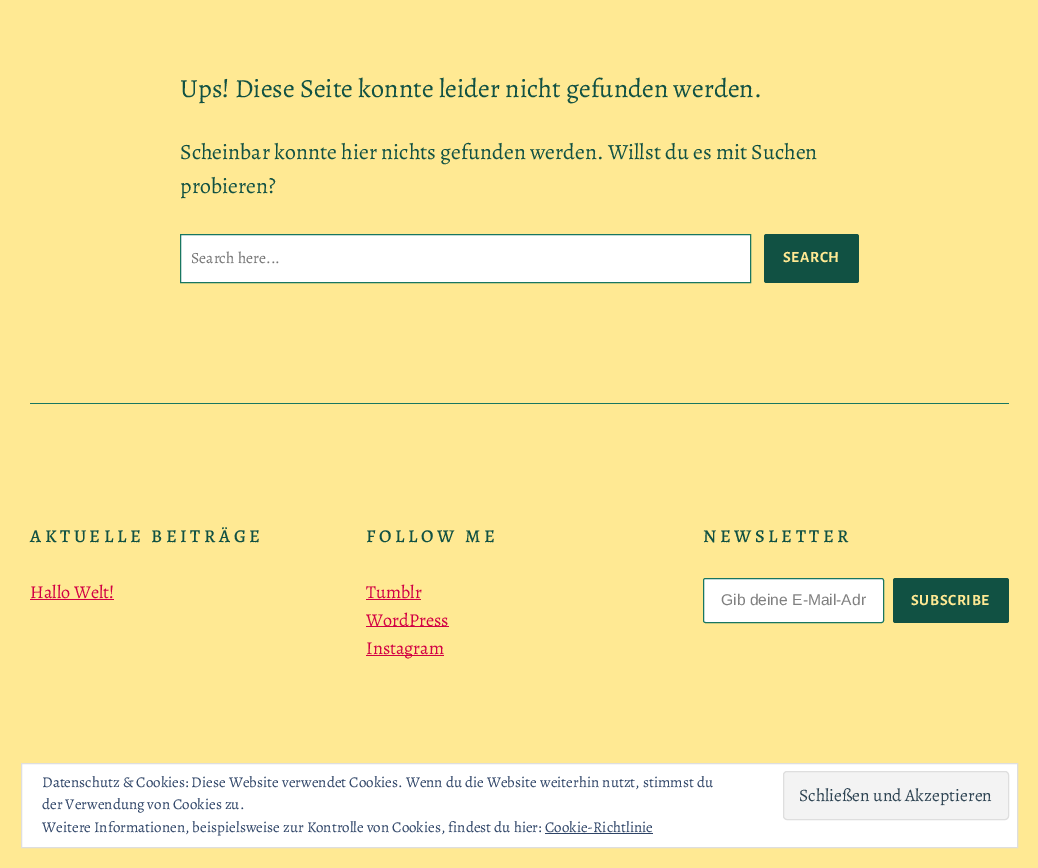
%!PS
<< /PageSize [1038 868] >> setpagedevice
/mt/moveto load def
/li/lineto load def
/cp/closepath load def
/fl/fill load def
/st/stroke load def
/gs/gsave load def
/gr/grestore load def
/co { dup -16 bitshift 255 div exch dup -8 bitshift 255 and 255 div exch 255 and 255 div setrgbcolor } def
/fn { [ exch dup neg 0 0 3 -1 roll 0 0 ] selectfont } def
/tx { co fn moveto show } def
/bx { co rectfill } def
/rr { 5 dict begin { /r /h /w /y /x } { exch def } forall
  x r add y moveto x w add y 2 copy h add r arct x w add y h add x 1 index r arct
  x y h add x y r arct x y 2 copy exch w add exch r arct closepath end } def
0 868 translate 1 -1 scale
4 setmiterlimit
0 0 1038 868 16#FFE993 bx
16#FFFFFF co
180.5 234.5 mt 750.5 234.5 li 750.5 282.5 li 180.5 282.5 li cp gs fl gr
16#187661 co
st
16#115143 co
764 234 95 49 2.5 rr fl
30 403 979 1 16#187661 bx
30 599 84 1 16#D20044 bx
366 599 55 1 16#D20044 bx
366 626 83 1 16#D20044 bx
366 655 78 1 16#D20044 bx
16#FFFFFF co
703.5 578.5 180 44 2 rr gs fl gr
16#187661 co
st
16#115143 co
893 578 116 45 2.5 rr fl
16#FFFFFF co
21.5 763.5 mt 1017.5 763.5 li 1017.5 847.5 li 21.5 847.5 li cp gs fl gr
16#DEDEDE co
st
16#F3F3F3 co
783.5 771.5 225 48 3.5 rr gs fl gr
16#DEDEDE co
st
545 833 108 1 16#2E4467 bx
(Ups! Diese Seite konnte leider nicht gefunden werden.) 180 97 /Alegreya-Regular 26.2 16#115143 tx
(Scheinbar konnte hier nichts gefunden werden. Willst du es mit Suchen) 180 159 /Alegreya-Regular 21.8 16#115143 tx
(probieren?) 180 193 /Alegreya-Regular 21.8 16#115143 tx
(Search here...) 191 263 /Alegreya-Regular 15.6 16#757575 tx
/AlegreyaSans-Bold 15.6 fn
16#FFE993 co
783 262 mt .6 0 (SEARCH) ashow
/Alegreya-Medium 18.2 fn
16#115143 co
30 542 mt 3.6 0 (AKTUELLE BEITRÄGE) ashow
(Hallo Welt!) 30 598 /Alegreya-Regular 18.2 16#D20044 tx
/Alegreya-Medium 18.2 fn
16#115143 co
366 542 mt 3.6 0 (FOLLOW ME) ashow
(Tumblr) 366 598 /Alegreya-Regular 18.2 16#D20044 tx
(WordPress) 366 626 /Alegreya-Regular 18.2 16#D20044 tx
(Instagram) 366 654 /Alegreya-Regular 18.2 16#D20044 tx
/Alegreya-Medium 18.2 fn
16#115143 co
703 542 mt 3.6 0 (NEWSLETTER) ashow
(Gib deine E-Mail-Adr) 721 605 /LiberationSans-Regular 15.6 16#808080 tx
/AlegreyaSans-Bold 15.6 fn
16#FFE993 co
911 605 mt .6 0 (SUBSCRIBE) ashow
(Datenschutz & Cookies: Diese Website verwendet Cookies. Wenn du die Website weiterhin nutzt, stimmst du) 42 787 /Alegreya-Regular 15 16#2E4467 tx
(der Verwendung von Cookies zu.) 42 809 /Alegreya-Regular 15 16#2E4467 tx
(Schließen und Akzeptieren) 799 801 /Alegreya-Regular 17.5 16#2E4453 tx
(Weitere Informationen, beispielsweise zur Kontrolle von Cookies, findest du hier: Cookie-Richtlinie) 42 832 /Alegreya-Regular 15 16#2E4467 tx
showpage
